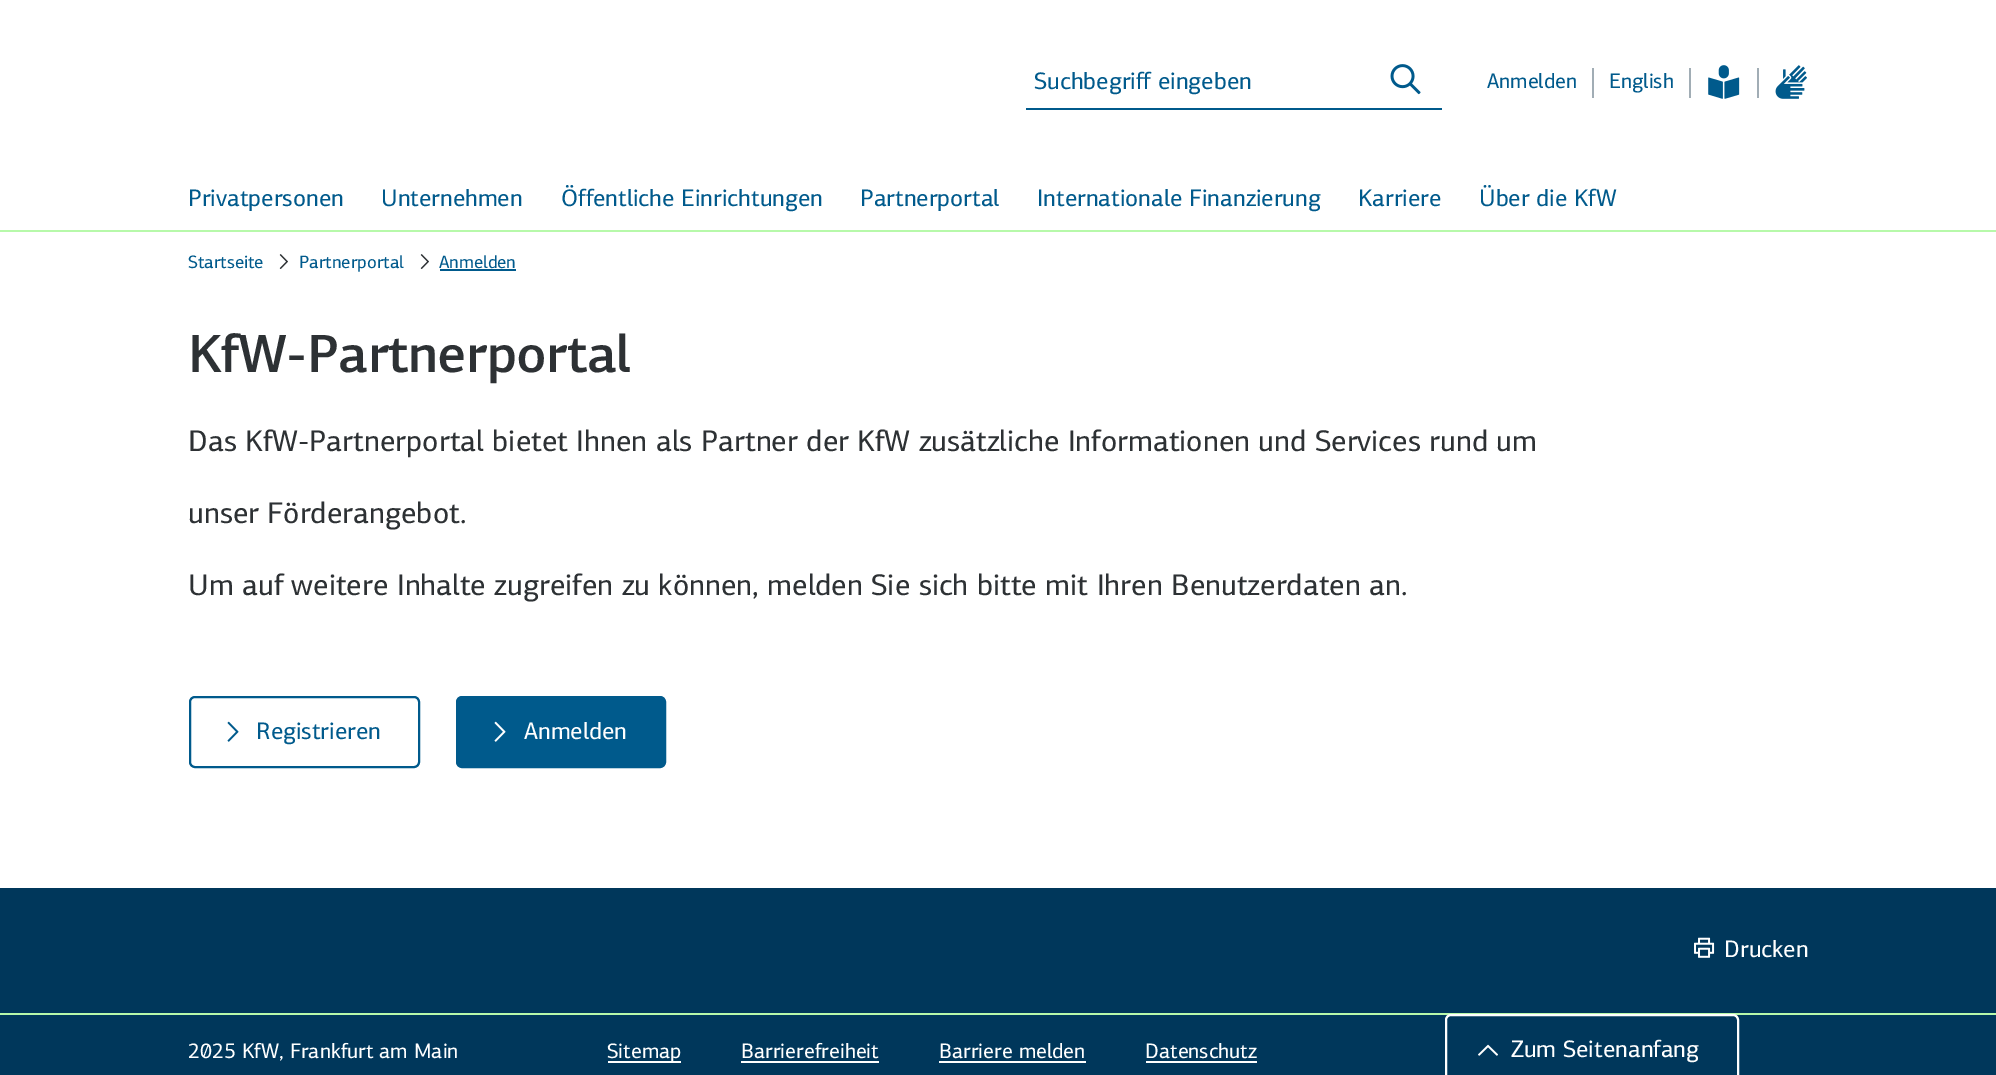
%!PS
<< /PageSize [1996 1075] >> setpagedevice
/mt/moveto load def
/fl/fill load def
/st/stroke load def
/gs/gsave load def
/gr/grestore load def
/lw/setlinewidth load def
/co { dup -16 bitshift 255 div exch dup -8 bitshift 255 and 255 div exch 255 and 255 div setrgbcolor } def
/fn { [ exch dup neg 0 0 3 -1 roll 0 0 ] selectfont } def
/tx { co fn moveto show } def
/bx { co rectfill } def
/rr { 5 dict begin { /r /h /w /y /x } { exch def } forall
  x r add y moveto x w add y 2 copy h add r arct x w add y h add x 1 index r arct
  x y h add x y r arct x y 2 copy exch w add exch r arct closepath end } def
/im { 5 dict begin { /h /w /y /x /name } { exch def } forall
  gsave x y translate w h scale
  w h 8 [w 0 0 h 0 0] name (r) file false 3 colorimage grestore end } def
0 1075 translate 1 -1 scale
4 setmiterlimit
0 0 1996 1075 16#FFFFFF bx
1026 108 416 2 16#005A8C bx
(media/1.raw) 1390 64 31 31 im
1592 68 2 30 16#A1ADB5 bx
1689 68 2 30 16#A1ADB5 bx
1757 68 2 30 16#A1ADB5 bx
(media/2.raw) 1708 65 32 34 im
(media/3.raw) 1775 65 32 34 im
0 230 1996 2 16#B7F9AA bx
(media/4.raw) 279 254 9 15 im
(media/4.raw) 420 254 9 15 im
440 269 76 2 16#005A8C bx
2 lw
190 697 229 70 5 rr st
(media/5.raw) 227 721 12 21 im
457 697 208 70 5 rr gs fl gr
st
(media/6.raw) 494 721 12 21 im
0 888 1996 187 16#00375B bx
(media/7.raw) 1694 937 21 21 im
0 1013 1996 2 16#B7F9AA bx
608 1061 73 2 16#FFFFFF bx
741 1061 138 2 16#FFFFFF bx
939 1061 147 2 16#FFFFFF bx
1146 1061 111 2 16#FFFFFF bx
1446 1015 292 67 5 rr st
(media/8.raw) 1478 1044 20 12 im
(Suchbegriff eingeben) 1034 89 /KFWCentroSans-Regular 24 16#005A8C tx
(Anmelden) 1487 88 /KFWCentroSans-Regular 21 16#005A8C tx
(English) 1609 88 /KFWCentroSans-Regular 21 16#005A8C tx
(Privatpersonen) 188 206 /KFWCentroSans-Regular 24 16#005A8C tx
(Unternehmen) 381 206 /KFWCentroSans-Regular 24 16#005A8C tx
(Öffentliche Einrichtungen) 561 206 /KFWCentroSans-Regular 24 16#005A8C tx
(Partnerportal) 860 206 /KFWCentroSans-Regular 24 16#005A8C tx
(Internationale Finanzierung) 1037 206 /KFWCentroSans-Regular 24 16#005A8C tx
(Karriere) 1358 206 /KFWCentroSans-Regular 24 16#005A8C tx
(Über die KfW) 1479 206 /KFWCentroSans-Regular 24 16#005A8C tx
(Startseite) 188 268 /KFWCentroSans-Regular 18 16#005A8C tx
(Partnerportal) 299 268 /KFWCentroSans-Regular 18 16#005A8C tx
(Anmelden) 439 268 /KFWCentroSans-Regular 18 16#005A8C tx
/KFWCentroSans-Medium 54 fn
16#2D3134 co
188 372 mt -.75 0 (KfW-Partnerportal) ashow
(Das KfW-Partnerportal bietet Ihnen als Partner der KfW zusätzliche Informationen und Services rund um) 188 451 /KFWCentroSans-Regular 30 16#2D3134 tx
(unser Förderangebot.) 188 523 /KFWCentroSans-Regular 30 16#2D3134 tx
(Um auf weitere Inhalte zugreifen zu können, melden Sie sich bitte mit Ihren Benutzerdaten an.) 188 595 /KFWCentroSans-Regular 30 16#2D3134 tx
(Registrieren) 256 739 /KFWCentroSans-Regular 24 16#005A8C tx
(Anmelden) 524 739 /KFWCentroSans-Regular 24 16#FFFFFF tx
(Drucken) 1724 957 /KFWCentroSans-Regular 24 16#FFFFFF tx
(2025 KfW, Frankfurt am Main) 188 1058 /KFWCentroSans-Regular 21 16#FFFFFF tx
(Sitemap) 607 1058 /KFWCentroSans-Regular 21 16#FFFFFF tx
(Barrierefreiheit) 741 1058 /KFWCentroSans-Regular 21 16#FFFFFF tx
(Barriere melden) 939 1058 /KFWCentroSans-Regular 21 16#FFFFFF tx
(Datenschutz) 1145 1058 /KFWCentroSans-Regular 21 16#FFFFFF tx
(Zum Seitenanfang) 1511 1057 /KFWCentroSans-Regular 24 16#FFFFFF tx
showpage
